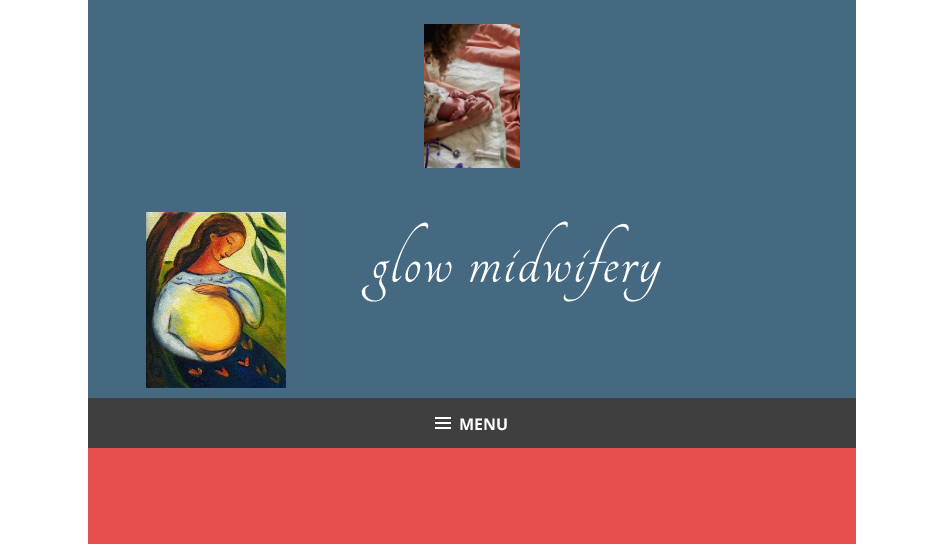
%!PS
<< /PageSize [943 549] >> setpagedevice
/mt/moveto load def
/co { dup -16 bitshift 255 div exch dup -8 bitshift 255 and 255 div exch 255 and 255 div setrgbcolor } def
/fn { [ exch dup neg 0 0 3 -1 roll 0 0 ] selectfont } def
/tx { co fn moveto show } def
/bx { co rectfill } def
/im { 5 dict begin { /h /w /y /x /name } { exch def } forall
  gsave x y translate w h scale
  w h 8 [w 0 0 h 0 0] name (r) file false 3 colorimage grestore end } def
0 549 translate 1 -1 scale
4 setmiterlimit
0 0 943 549 16#FFFFFF bx
88 0 768 398 16#456980 bx
(media/1.raw) 424 24 96 144 im
(media/2.raw) 146 212 140 176 im
88 398 768 50 16#403F3F bx
(media/3.raw) 435 417 16 12 im
88 448 768 96 16#E74F4E bx
/Tangerine-Regular 80 fn
16#FFFFFF co
371 282 mt 2 0 (glow midwifery) ashow
(MENU) 459 430 /NotoSans-Bold 16 16#FFFFFF tx
showpage
